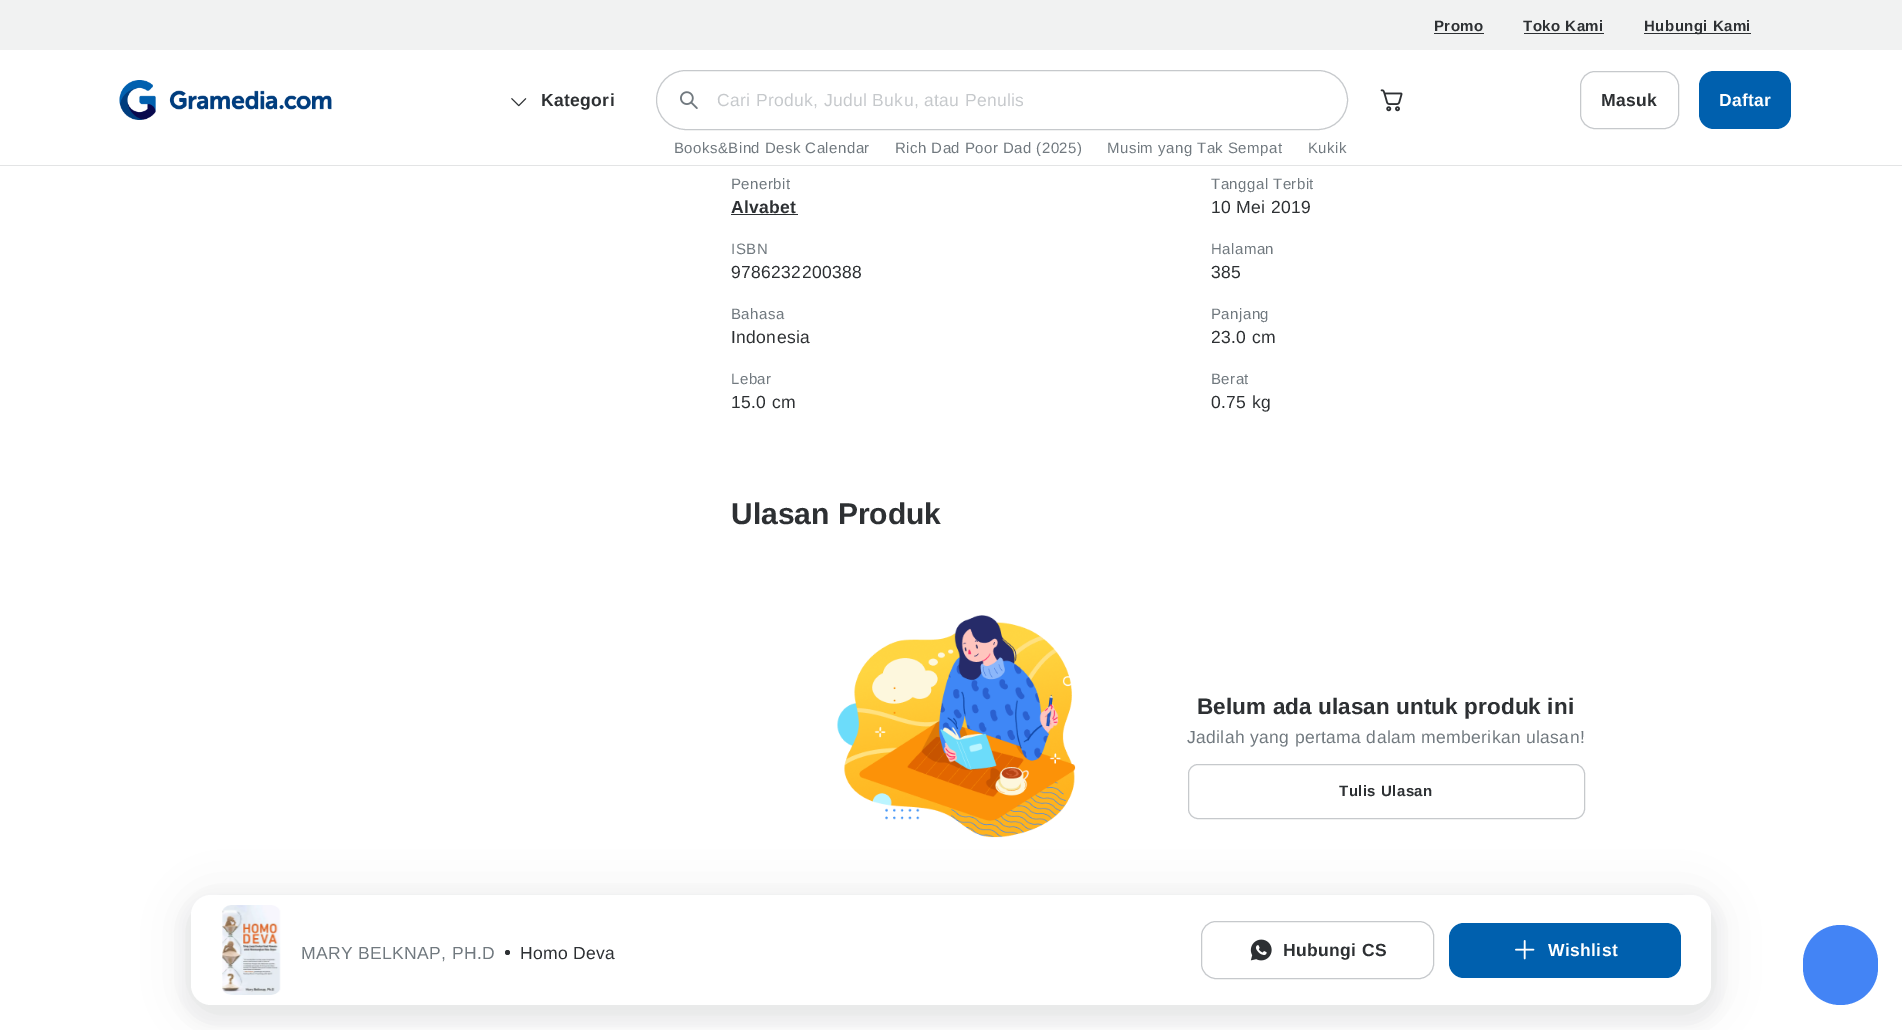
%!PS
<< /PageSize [1902 1030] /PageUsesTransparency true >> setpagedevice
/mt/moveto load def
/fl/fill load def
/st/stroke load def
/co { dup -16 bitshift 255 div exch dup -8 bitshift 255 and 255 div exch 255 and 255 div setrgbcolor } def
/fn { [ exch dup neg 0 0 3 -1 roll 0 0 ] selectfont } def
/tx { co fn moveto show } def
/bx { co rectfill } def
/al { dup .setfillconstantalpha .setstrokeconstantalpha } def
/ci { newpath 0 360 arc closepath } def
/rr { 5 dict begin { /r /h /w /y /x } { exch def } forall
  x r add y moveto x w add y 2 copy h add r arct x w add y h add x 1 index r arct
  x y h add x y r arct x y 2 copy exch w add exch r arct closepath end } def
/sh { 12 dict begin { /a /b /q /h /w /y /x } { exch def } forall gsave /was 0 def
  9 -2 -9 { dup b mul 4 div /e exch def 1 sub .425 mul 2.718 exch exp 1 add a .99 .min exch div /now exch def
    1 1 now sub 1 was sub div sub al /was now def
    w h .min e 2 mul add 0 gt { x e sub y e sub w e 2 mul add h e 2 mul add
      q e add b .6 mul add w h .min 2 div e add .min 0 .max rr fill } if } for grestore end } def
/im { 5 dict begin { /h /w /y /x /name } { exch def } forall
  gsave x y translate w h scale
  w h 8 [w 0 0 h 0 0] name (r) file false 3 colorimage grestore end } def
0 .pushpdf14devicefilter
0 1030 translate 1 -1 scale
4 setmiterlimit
0 0 1902 1030 16#FFFFFF bx
0 0 1902 50 16#F1F2F2 bx
1434 33 50 1 16#2D3033 bx
1524 33 80 1 16#2D3033 bx
1644 33 107 1 16#2D3033 bx
(media/1.raw) 119 80 213 40 im
(media/2.raw) 511 98 16 9 im
16#C6C9CC co
656.5 70.5 691 59 29.5 rr st
(media/3.raw) 680 91 18 18 im
(media/4.raw) 1380 89 23 23 im
1580.5 71.5 98 57 14.5 rr st
16#0060AE co
1699 71 92 58 15 rr fl
0 165 1902 1 16#E3E4E5 bx
731 214 67 1 16#2D3033 bx
(media/5.raw) 837 615 239 223 im
16#C6C9CC co
1188.5 764.5 396 54 9.5 rr st
16#323437 co
191 900 1520 110 20 22.5 .1 sh
184 898 1535 125 28 7.5 .06 sh
16#FFFFFF co
191 895 1520 110 20 rr fl
(media/6.raw) 222 905 59 90 im
16#2D3033 co
507.5 952.5 2.5 ci fl
16#C6C9CC co
1201.5 921.5 232 57 14.5 rr st
(media/7.raw) 1250 939 22 22 im
16#0060AE co
1449 923 232 55 15 rr fl
(media/8.raw) 1515 940 20 20 im
16#4384F5 co
1803 925 75 80 37.5 rr fl
/LiberationSans-Bold 15 fn
16#2D3033 co
1434 31 mt .45 0 (Promo) ashow
1523 31 mt .45 0 (Toko Kami) ashow
1644 31 mt .45 0 (Hubungi Kami) ashow
/LiberationSans-Bold 17.5 fn
541 106 mt .35 0 (Kategori) ashow
/LiberationSans-Regular 17.5 fn
16#C6C9CC co
717 106 mt .35 0 (Cari Produk, Judul Buku, atau Penulis) ashow
/LiberationSans-Bold 17.5 fn
16#2D3033 co
1601 106 mt .35 0 (Masuk) ashow
16#FFFFFF co
1719 106 mt .35 0 (Daftar) ashow
/LiberationSans-Regular 15 fn
16#71797F co
674 153 mt .45 0 (Books&Bind Desk Calendar) ashow
895 153 mt .45 0 (Rich Dad Poor Dad \(2025\)) ashow
1107 153 mt .45 0 (Musim yang Tak Sempat) ashow
1308 153 mt .45 0 (Kukik) ashow
731 189 mt .45 0 (Penerbit) ashow
/LiberationSans-Bold 17.5 fn
16#2D3033 co
731 213 mt .35 0 (Alvabet) ashow
/LiberationSans-Regular 15 fn
16#71797F co
1211 189 mt .45 0 (Tanggal Terbit) ashow
/LiberationSans-Regular 17.5 fn
16#2D3033 co
1211 213 mt .35 0 (10 Mei 2019) ashow
/LiberationSans-Regular 15 fn
16#71797F co
731 254 mt .45 0 (ISBN) ashow
/LiberationSans-Regular 17.5 fn
16#2D3033 co
731 278 mt .35 0 (9786232200388) ashow
/LiberationSans-Regular 15 fn
16#71797F co
1211 254 mt .45 0 (Halaman) ashow
/LiberationSans-Regular 17.5 fn
16#2D3033 co
1211 278 mt .35 0 (385) ashow
/LiberationSans-Regular 15 fn
16#71797F co
731 319 mt .45 0 (Bahasa) ashow
/LiberationSans-Regular 17.5 fn
16#2D3033 co
731 343 mt .35 0 (Indonesia) ashow
/LiberationSans-Regular 15 fn
16#71797F co
1211 319 mt .45 0 (Panjang) ashow
/LiberationSans-Regular 17.5 fn
16#2D3033 co
1211 343 mt .35 0 (23.0 cm) ashow
/LiberationSans-Regular 15 fn
16#71797F co
731 384 mt .45 0 (Lebar) ashow
/LiberationSans-Regular 17.5 fn
16#2D3033 co
731 408 mt .35 0 (15.0 cm) ashow
/LiberationSans-Regular 15 fn
16#71797F co
1211 384 mt .45 0 (Berat) ashow
/LiberationSans-Regular 17.5 fn
16#2D3033 co
1211 408 mt .35 0 (0.75 kg) ashow
(Ulasan Produk) 731 524 /LiberationSans-Bold 30 16#2D3033 tx
/LiberationSans-Bold 22.5 fn
1197 714 mt .1 0 (Belum ada ulasan untuk produk ini) ashow
/LiberationSans-Regular 17.5 fn
16#71797F co
1187 743 mt .35 0 (Jadilah yang pertama dalam memberikan ulasan!) ashow
/LiberationSans-Bold 15 fn
16#2D3033 co
1339 796 mt .45 0 (Tulis Ulasan) ashow
/LiberationSans-Regular 17.5 fn
16#71797F co
301 959 mt .35 0 (MARY BELKNAP, PH.D) ashow
16#2D3033 co
520 959 mt .35 0 (Homo Deva) ashow
/LiberationSans-Bold 17.5 fn
1283 956 mt .35 0 (Hubungi CS) ashow
16#FFFFFF co
1548 956 mt .35 0 (Wishlist) ashow
.poppdf14devicefilter showpage
